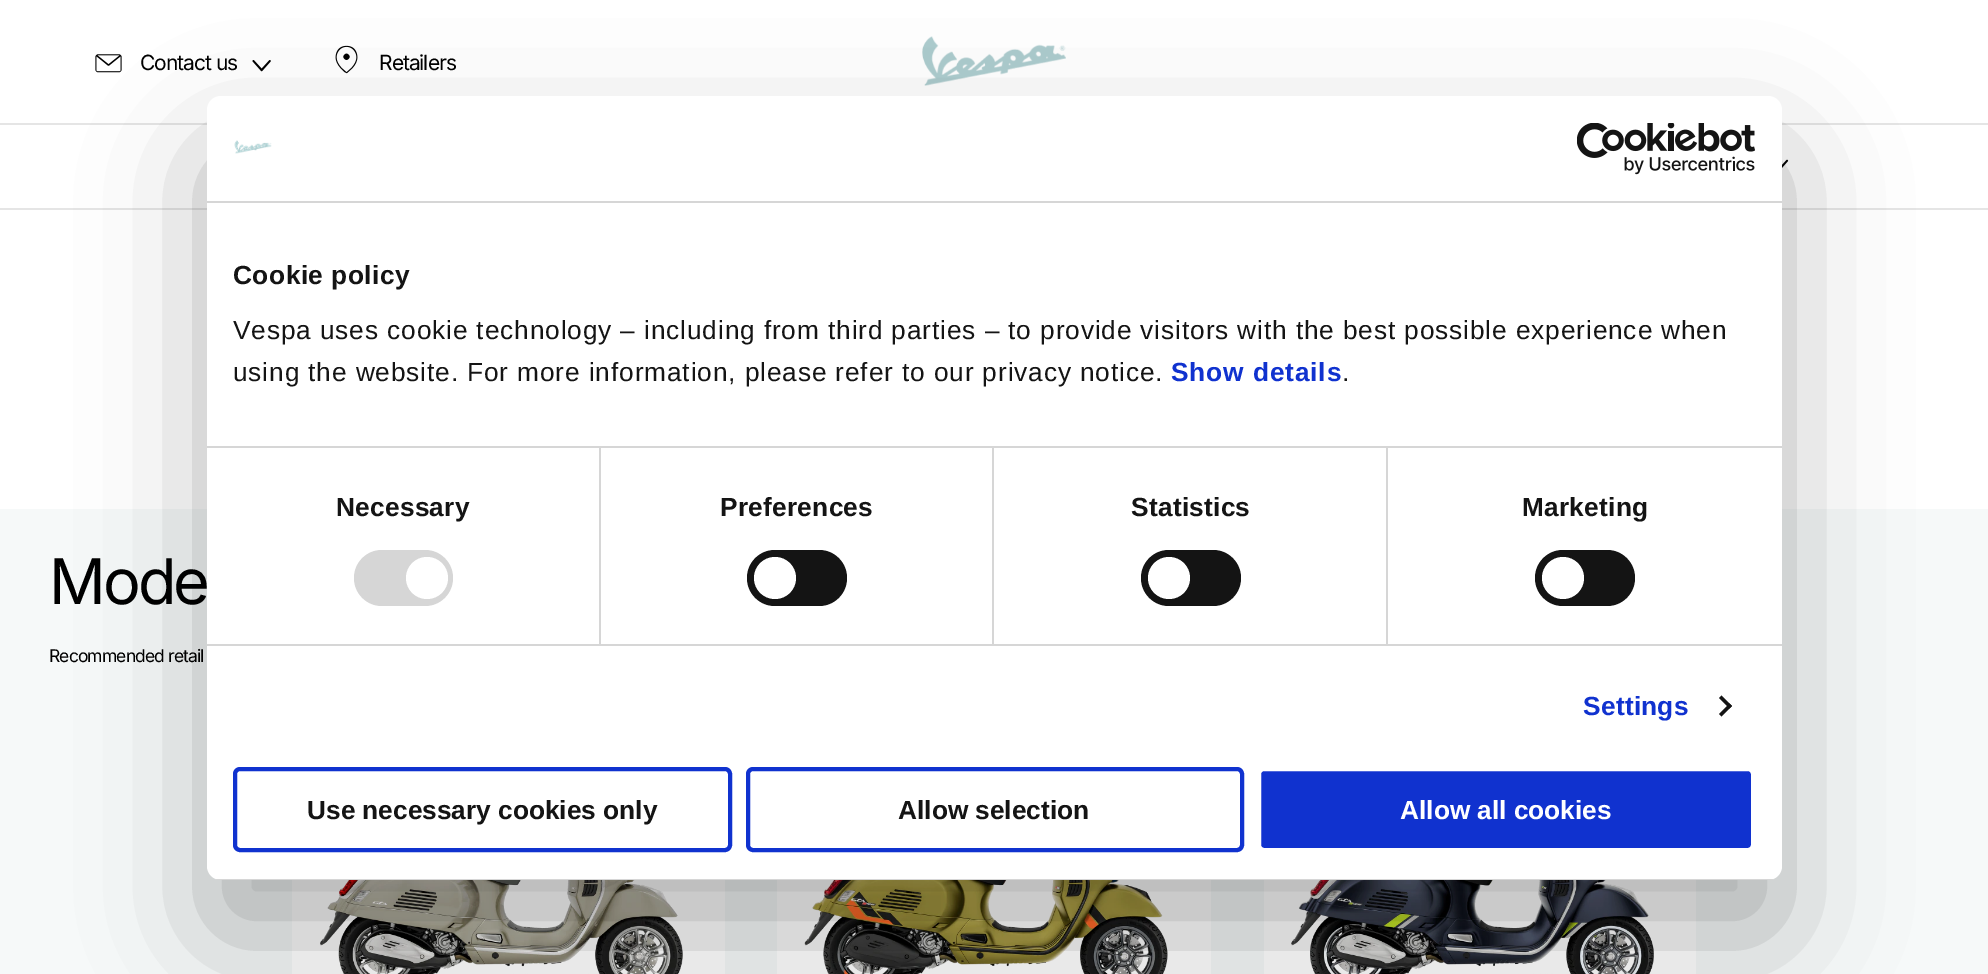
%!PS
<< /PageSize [1988 974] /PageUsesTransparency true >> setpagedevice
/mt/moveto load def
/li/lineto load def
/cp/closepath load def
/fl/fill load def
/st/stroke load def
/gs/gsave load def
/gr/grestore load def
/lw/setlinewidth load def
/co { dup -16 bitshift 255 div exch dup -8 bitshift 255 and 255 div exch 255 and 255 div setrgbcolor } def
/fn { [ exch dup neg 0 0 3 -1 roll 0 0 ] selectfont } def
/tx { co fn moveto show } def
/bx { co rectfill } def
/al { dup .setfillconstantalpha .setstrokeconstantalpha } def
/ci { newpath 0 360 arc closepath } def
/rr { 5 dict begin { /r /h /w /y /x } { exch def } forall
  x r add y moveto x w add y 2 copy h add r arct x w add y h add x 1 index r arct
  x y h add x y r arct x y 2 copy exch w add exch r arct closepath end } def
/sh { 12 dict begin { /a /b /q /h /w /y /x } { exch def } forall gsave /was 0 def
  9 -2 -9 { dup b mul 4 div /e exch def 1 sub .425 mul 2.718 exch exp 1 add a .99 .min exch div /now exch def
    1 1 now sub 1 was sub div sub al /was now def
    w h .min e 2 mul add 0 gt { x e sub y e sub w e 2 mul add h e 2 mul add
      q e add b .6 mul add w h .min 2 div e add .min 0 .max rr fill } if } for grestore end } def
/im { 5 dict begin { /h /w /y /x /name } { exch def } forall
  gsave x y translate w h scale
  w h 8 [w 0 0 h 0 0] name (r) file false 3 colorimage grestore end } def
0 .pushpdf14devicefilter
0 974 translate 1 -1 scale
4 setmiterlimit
0 0 1988 974 16#FFFFFF bx
(media/1.raw) 95 54 27 19 im
(media/2.raw) 252 60 19 12 im
(media/3.raw) 335 45 23 29 im
(media/4.raw) 922 36 144 50 im
0 123 1988 2 16#E5E5E5 bx
0 208 1988 2 16#E5E5E5 bx
(media/5.raw) 1782 159 7 9 im
0 509 1988 465 16#F6F9F9 bx
292 880 433 94 16#FFFFFF bx
(media/6.raw) 320 880 363 94 im
777 880 434 94 16#FFFFFF bx
(media/7.raw) 804 880 364 94 im
1264 880 432 94 16#FFFFFF bx
(media/8.raw) 1291 880 363 94 im
16#000000 co
207 152 1575 784 14 59.5 .3 sh
16#FFFFFF co
207 96 1575 784 14 rr fl
207 201 1575 2 16#D6D6D6 bx
(media/9.raw) 234 140 38 14 im
(media/10.raw) 1577 123 178 52 im
207 446 1575 2 16#D6D6D6 bx
207 644 1575 2 16#D6D6D6 bx
599 448 2 196 16#D6D6D6 bx
354 550 99 56 28 rr fl
16#FFFFFF co
427 578 21 ci fl
992 448 2 196 16#D6D6D6 bx
16#141414 co
747 550 100 56 28 rr fl
16#FFFFFF co
775 578 21 ci fl
1386 448 2 196 16#D6D6D6 bx
16#141414 co
1141 550 100 56 28 rr fl
16#FFFFFF co
1169 578 21 ci fl
16#141414 co
1535 550 100 56 28 rr fl
16#FFFFFF co
1563 578 21 ci fl
16#141414 co
1721.5 695.5 mt 1732 706 li 1729.5 708.5 li 1719 698 li cp fl
1729.5 703.5 mt 1732 706 li 1721.5 716.5 li 1719 714 li cp fl
gs
207 96 1575 784 14 rr clip newpath
216 879 1557 1 16#D6D6D6 bx
gr
16#1032CF co
4 lw
235 769 495 81 5 rr st
748 769 494 81 5 rr st
1259 769 494 81 5 rr gs fl gr
16#FFFFFF co
st
/Inter-Regular 21 fn
16#000000 co
140 70 mt -1 0 (Contact us) ashow
379 70 mt -1 0 (Retailers) ashow
/Inter-Regular 63 fn
49 604 mt -3 0 (Mode) ashow
/Inter-Regular 17.5 fn
49 662 mt -.9 0 (Recommended retail) ashow
/LiberationSans-Bold 26.25 fn
16#141414 co
233 284 mt .5 0 (Cookie policy) ashow
/LiberationSans-Regular 26.25 fn
233 339 mt .88 0 (Vespa uses cookie technology – including from third parties – to provide visitors with the best possible experience when) ashow
233 381 mt .88 0 (using the website. For more information, please refer to our privacy notice.) ashow
/LiberationSans-Bold 26.25 fn
16#1032CF co
1171 381 mt .88 0 (Show details) ashow
/LiberationSans-Regular 26.25 fn
16#141414 co
1342 381 mt .88 0 (.) ashow
/LiberationSans-Bold 26.25 fn
336 516 mt .25 0 (Necessary) ashow
720 516 mt .25 0 (Preferences) ashow
1131 516 mt .25 0 (Statistics) ashow
1522 516 mt .25 0 (Marketing) ashow
16#1032CF co
1583 715 mt .25 0 (Settings) ashow
(Use necessary cookies only) 307 819 /LiberationSans-Bold 26.25 16#141414 tx
(Allow selection) 898 819 /LiberationSans-Bold 26.25 16#141414 tx
(Allow all cookies) 1400 819 /LiberationSans-Bold 26.25 16#FFFFFF tx
.poppdf14devicefilter showpage
